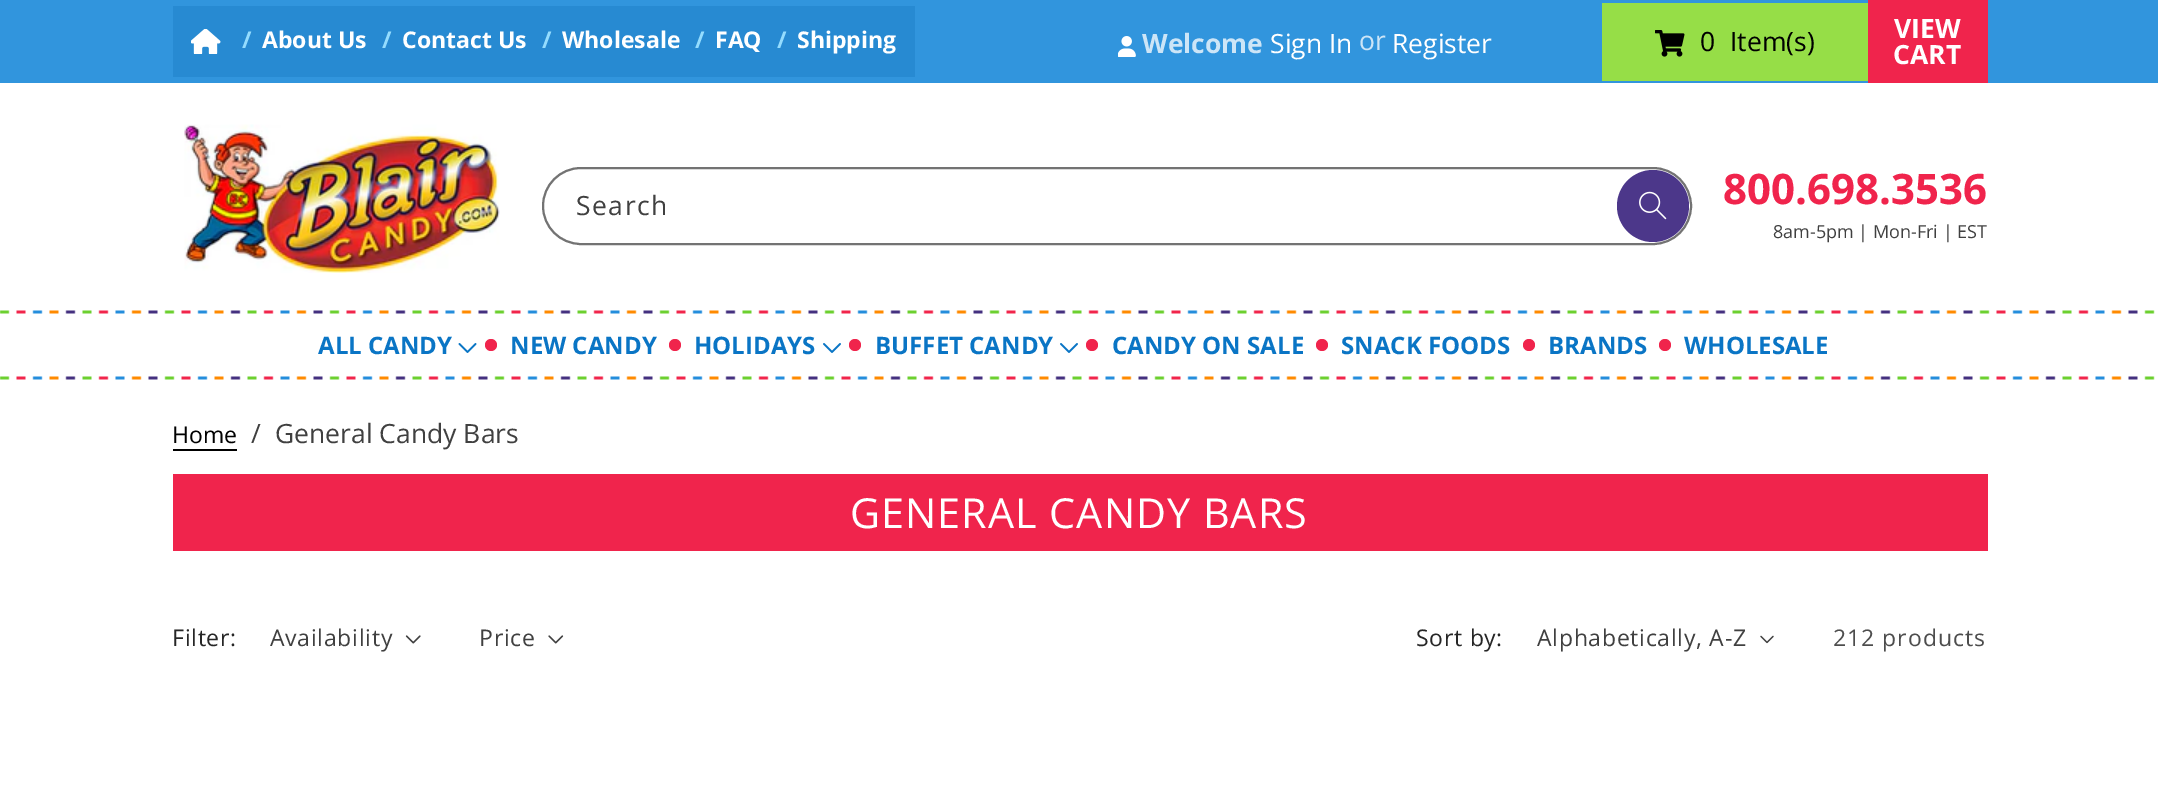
%!PS
<< /PageSize [2158 787] >> setpagedevice
/mt/moveto load def
/fl/fill load def
/st/stroke load def
/lw/setlinewidth load def
/co { dup -16 bitshift 255 div exch dup -8 bitshift 255 and 255 div exch 255 and 255 div setrgbcolor } def
/fn { [ exch dup neg 0 0 3 -1 roll 0 0 ] selectfont } def
/tx { co fn moveto show } def
/bx { co rectfill } def
/ci { newpath 0 360 arc closepath } def
/rr { 5 dict begin { /r /h /w /y /x } { exch def } forall
  x r add y moveto x w add y 2 copy h add r arct x w add y h add x 1 index r arct
  x y h add x y r arct x y 2 copy exch w add exch r arct closepath end } def
/im { 5 dict begin { /h /w /y /x /name } { exch def } forall
  gsave x y translate w h scale
  w h 8 [w 0 0 h 0 0] name (r) file false 3 colorimage grestore end } def
0 787 translate 1 -1 scale
4 setmiterlimit
0 0 2158 787 16#FFFFFF bx
0 0 2158 83 16#3195DD bx
173 6 742 71 16#278AD2 bx
(media/1.raw) 191 29 30 25 im
(media/2.raw) 1118 36 18 21 im
1602 3 266 78 16#96DE47 bx
(media/3.raw) 1655 30 30 27 im
1868 0 120 83 16#F0244C bx
(media/4.raw) 184 124 316 149 im
16#4C378A co
1653 206 36 ci fl
(media/5.raw) 1639 191 28 29 im
16#737373 co
2 lw
543 168 1148 76 38 rr st
(media/6.raw) 0 310 2155 70 im
(media/7.raw) 458 343 19 10 im
16#F0244C co
491 345 6 ci fl
675 345 6 ci fl
(media/8.raw) 823 343 18 10 im
855 345 6 ci fl
(media/8.raw) 1060 343 18 10 im
1092 345 6 ci fl
1322 345 6 ci fl
1529 345 6 ci fl
1665 345 6 ci fl
173 449 64 2 16#000000 bx
173 474 1815 77 16#F0244C bx
(media/9.raw) 405 635 16 9 im
(media/10.raw) 548 635 16 9 im
(media/11.raw) 1760 635 14 9 im
(/) 242 48 /OpenSans-Bold 23 16#94DCFE tx
(About Us) 262 48 /OpenSans-Bold 23 16#FFFFFF tx
(/) 382 48 /OpenSans-Bold 23 16#94DCFE tx
(Contact Us) 402 48 /OpenSans-Bold 23 16#FFFFFF tx
(/) 542 48 /OpenSans-Bold 23 16#94DCFE tx
(Wholesale) 562 48 /OpenSans-Bold 23 16#FFFFFF tx
(/) 695 48 /OpenSans-Bold 23 16#94DCFE tx
(FAQ) 715 48 /OpenSans-Bold 23 16#FFFFFF tx
(/) 777 48 /OpenSans-Bold 23 16#94DCFE tx
(Shipping) 797 48 /OpenSans-Bold 23 16#FFFFFF tx
(Welcome) 1142 53 /OpenSans-Bold 26.5 16#CCE5F7 tx
(Sign In) 1270 53 /OpenSans-Regular 26.5 16#FFFFFF tx
(or) 1359 50 /OpenSans-Regular 26.5 16#CCE5F7 tx
(Register) 1392 53 /OpenSans-Regular 26.5 16#FFFFFF tx
(0) 1700 51 /OpenSans-Regular 26.5 16#000000 tx
(Item\(s\)) 1730 51 /OpenSans-Regular 26.5 16#000000 tx
(VIEW) 1894 38 /OpenSans-Bold 26.5 16#FFFFFF tx
(CART) 1893 64 /OpenSans-Bold 26.5 16#FFFFFF tx
/OpenSans-Regular 26.5 fn
16#404040 co
576 215 mt 1.5 0 (Search) ashow
(800.698.3536) 1723 204 /OpenSans-Bold 42 16#F0244C tx
(8am-5pm | Mon-Fri | EST) 1773 238 /OpenSans-Regular 18 16#404040 tx
(ALL CANDY) 318 354 /OpenSans-Bold 24 16#0A75C5 tx
(NEW CANDY) 510 354 /OpenSans-Bold 24 16#0A75C5 tx
(HOLIDAYS) 694 354 /OpenSans-Bold 24 16#0A75C5 tx
(BUFFET CANDY) 875 354 /OpenSans-Bold 24 16#0A75C5 tx
(CANDY ON SALE) 1112 354 /OpenSans-Bold 24 16#0A75C5 tx
(SNACK FOODS) 1341 354 /OpenSans-Bold 24 16#0A75C5 tx
(BRANDS) 1548 354 /OpenSans-Bold 24 16#0A75C5 tx
(WHOLESALE) 1684 354 /OpenSans-Bold 24 16#0A75C5 tx
(Home) 172 443 /OpenSans-Regular 23 16#000000 tx
(/) 251 443 /OpenSans-Regular 26.5 16#404040 tx
(General Candy Bars) 275 443 /OpenSans-Regular 26.5 16#404040 tx
/OpenSans-Regular 41.4 fn
16#FFFFFF co
850 528 mt 1 0 (GENERAL CANDY BARS) ashow
/OpenSans-Regular 23 fn
16#262626 co
172 646 mt .7 0 (Filter:) ashow
16#404040 co
270 646 mt .7 0 (Availability) ashow
479 646 mt .7 0 (Price) ashow
16#262626 co
1416 646 mt .7 0 (Sort by:) ashow
16#404040 co
1537 646 mt .7 0 (Alphabetically, A-Z) ashow
16#4D4D4D co
1833 646 mt 1 0 (212 products) ashow
showpage
